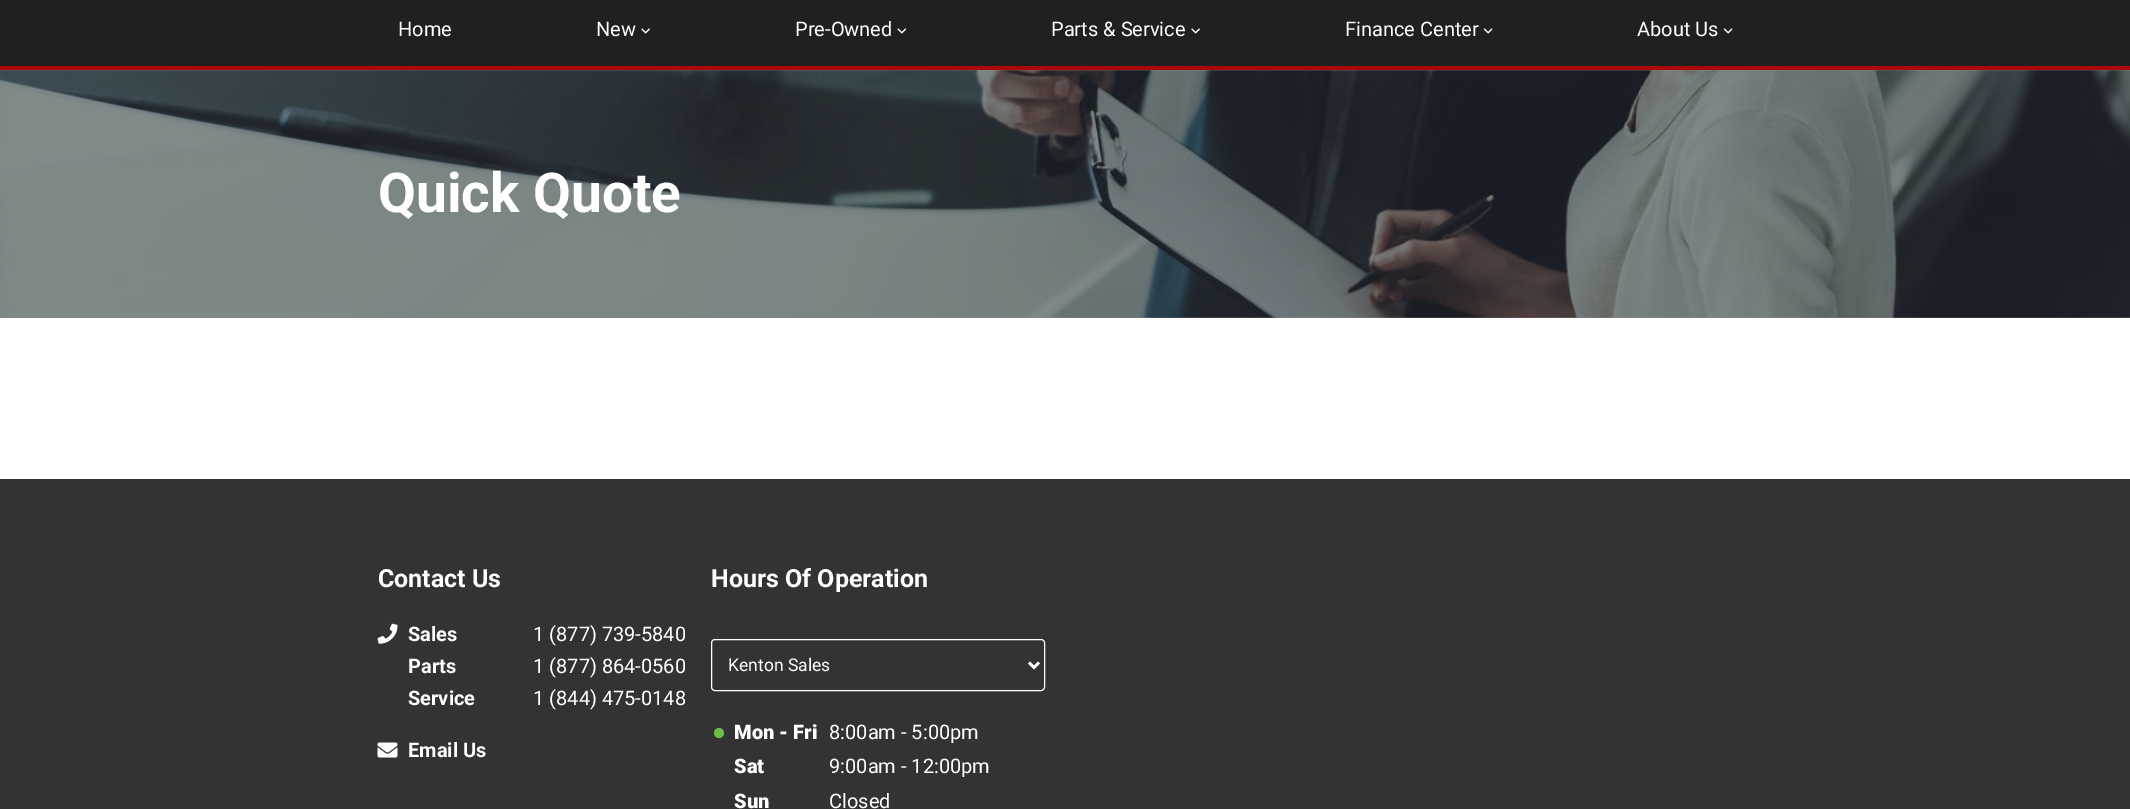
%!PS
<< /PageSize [2130 809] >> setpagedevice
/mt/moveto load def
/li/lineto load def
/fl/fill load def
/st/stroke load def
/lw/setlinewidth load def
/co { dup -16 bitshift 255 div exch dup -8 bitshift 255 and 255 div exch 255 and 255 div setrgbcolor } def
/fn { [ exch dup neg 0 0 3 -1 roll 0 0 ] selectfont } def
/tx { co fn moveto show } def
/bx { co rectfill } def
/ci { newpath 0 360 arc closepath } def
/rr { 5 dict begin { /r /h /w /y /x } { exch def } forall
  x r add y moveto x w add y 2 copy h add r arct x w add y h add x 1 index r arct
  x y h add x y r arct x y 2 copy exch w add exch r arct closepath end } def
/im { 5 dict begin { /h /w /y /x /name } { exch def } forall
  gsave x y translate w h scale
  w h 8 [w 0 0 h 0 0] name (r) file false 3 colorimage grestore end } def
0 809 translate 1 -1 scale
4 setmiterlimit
0 0 2130 809 16#FFFFFF bx
0 0 2130 66 16#211F1F bx
0 66 2130 4 16#AB0807 bx
(media/1.raw) 641 28 9 6 im
(media/2.raw) 897 28 10 6 im
(media/1.raw) 1191 28 9 6 im
(media/3.raw) 1483 28 10 6 im
(media/3.raw) 1723 28 10 6 im
(media/4.raw) 0 70 2130 248 im
0 479 2130 330 16#333333 bx
(media/5.raw) 377 623 21 21 im
(media/6.raw) 377 742 21 16 im
16#FFFFFF co
711.5 639.5 333 51 3.5 rr st
2.5 lw
1029 662.5 mt 1034 667.5 li 1039 662.5 li st
16#6BBF49 co
719 733 5 ci fl
(Home) 398 36 /Roboto-Regular 20 16#FFFFFF tx
(New) 596 36 /Roboto-Regular 20 16#FFFFFF tx
(Pre-Owned) 795 36 /Roboto-Regular 20 16#FFFFFF tx
(Parts & Service) 1051 36 /Roboto-Regular 20 16#FFFFFF tx
(Finance Center) 1345 36 /Roboto-Regular 20 16#FFFFFF tx
(About Us) 1637 36 /Roboto-Regular 20 16#FFFFFF tx
(Quick Quote) 378 212 /Roboto-Bold 55 16#FFFFFF tx
(Contact Us) 378 587 /Roboto-Bold 25 16#FFFFFF tx
(Sales) 408 641 /Roboto-Bold 20 16#FFFFFF tx
(1 \(877\) 739-5840) 533 641 /Roboto-Regular 20 16#FFFFFF tx
(Parts) 408 673 /Roboto-Bold 20 16#FFFFFF tx
(1 \(877\) 864-0560) 533 673 /Roboto-Regular 20 16#FFFFFF tx
(Service) 408 705 /Roboto-Bold 20 16#FFFFFF tx
(1 \(844\) 475-0148) 533 705 /Roboto-Regular 20 16#FFFFFF tx
(Email Us) 408 757 /Roboto-Bold 20 16#FFFFFF tx
(Hours Of Operation) 711 587 /Roboto-Bold 25 16#FFFFFF tx
(Kenton Sales) 728 671 /Roboto-Regular 17.5 16#FFFFFF tx
(Mon - Fri) 734 739 /Roboto-Black 20 16#FFFFFF tx
(8:00am - 5:00pm) 829 739 /Roboto-Regular 20 16#FFFFFF tx
(Sat) 734 773 /Roboto-Black 20 16#FFFFFF tx
(9:00am - 12:00pm) 829 773 /Roboto-Regular 20 16#FFFFFF tx
(Sun) 734 808 /Roboto-Black 20 16#FFFFFF tx
(Closed) 829 808 /Roboto-Regular 20 16#FFFFFF tx
showpage
